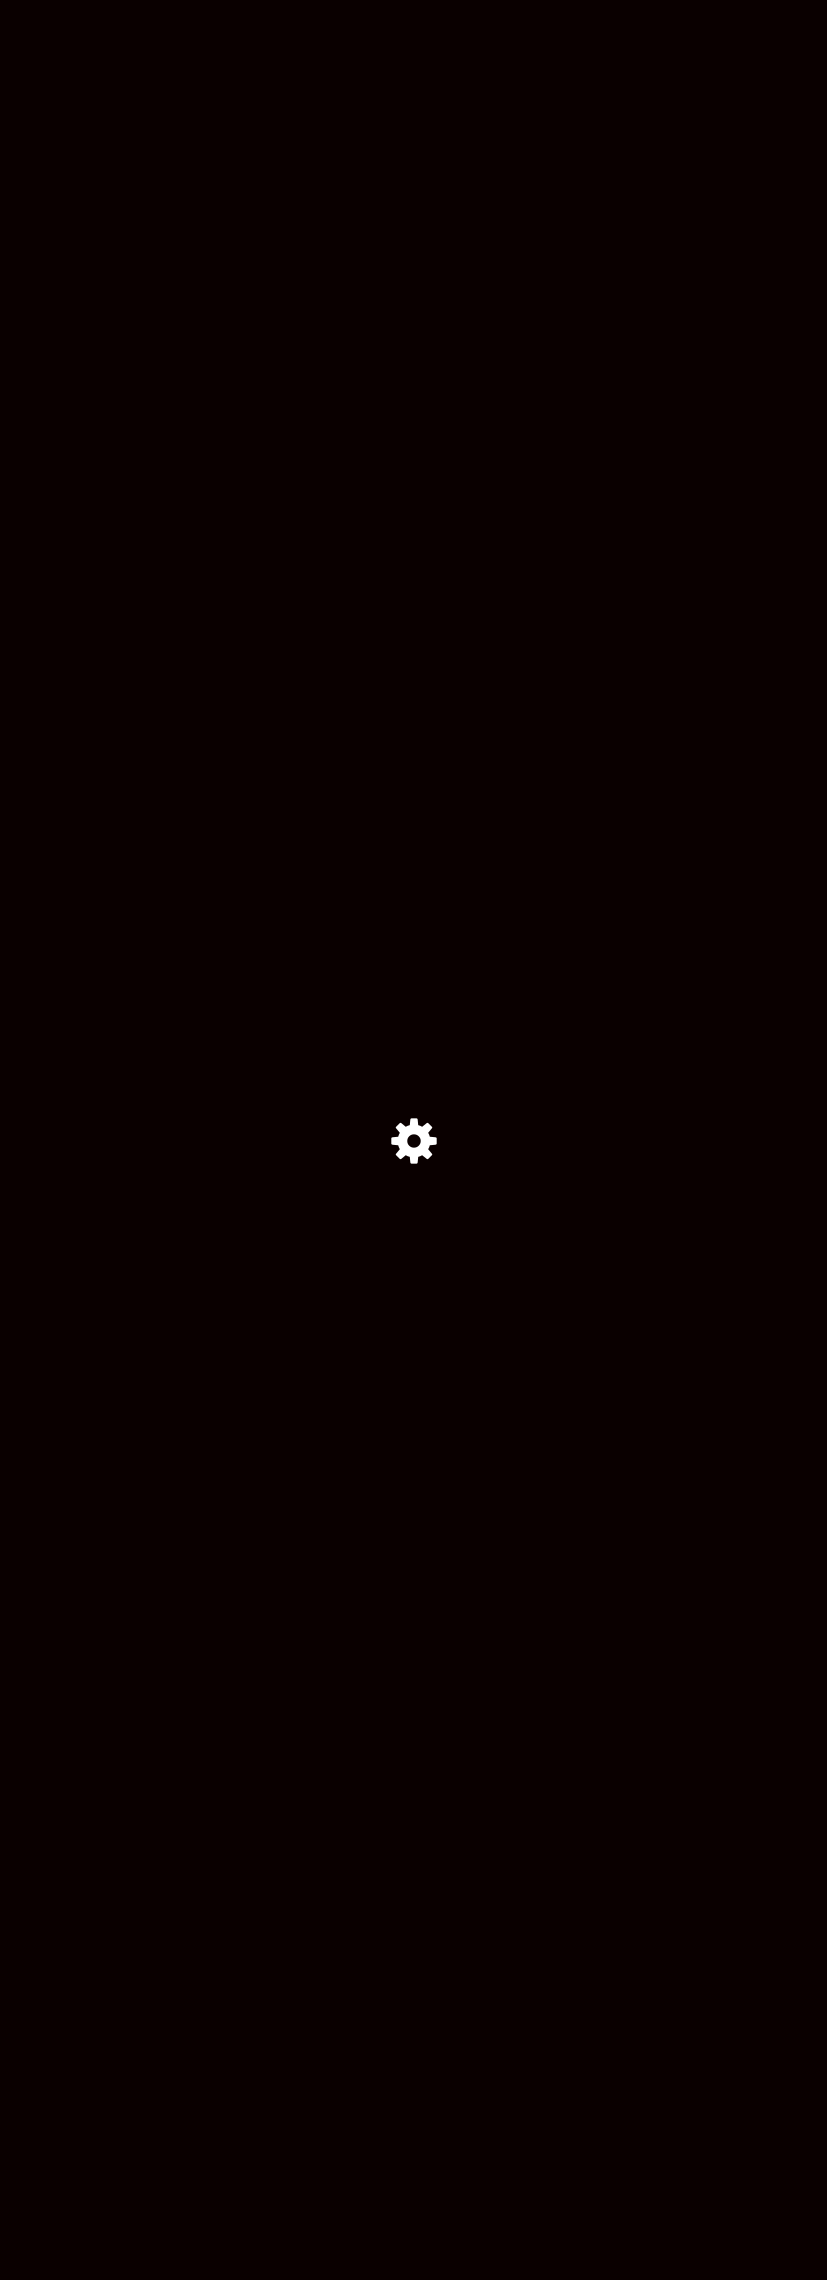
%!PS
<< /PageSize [827 2280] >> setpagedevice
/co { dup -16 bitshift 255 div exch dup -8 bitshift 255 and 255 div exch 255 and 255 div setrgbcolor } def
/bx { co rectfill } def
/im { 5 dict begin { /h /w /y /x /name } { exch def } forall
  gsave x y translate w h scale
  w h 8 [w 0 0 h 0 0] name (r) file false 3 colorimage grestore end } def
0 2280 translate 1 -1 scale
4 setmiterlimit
0 0 827 2280 16#0A0000 bx
(media/1.raw) 391 1118 46 46 im
showpage
